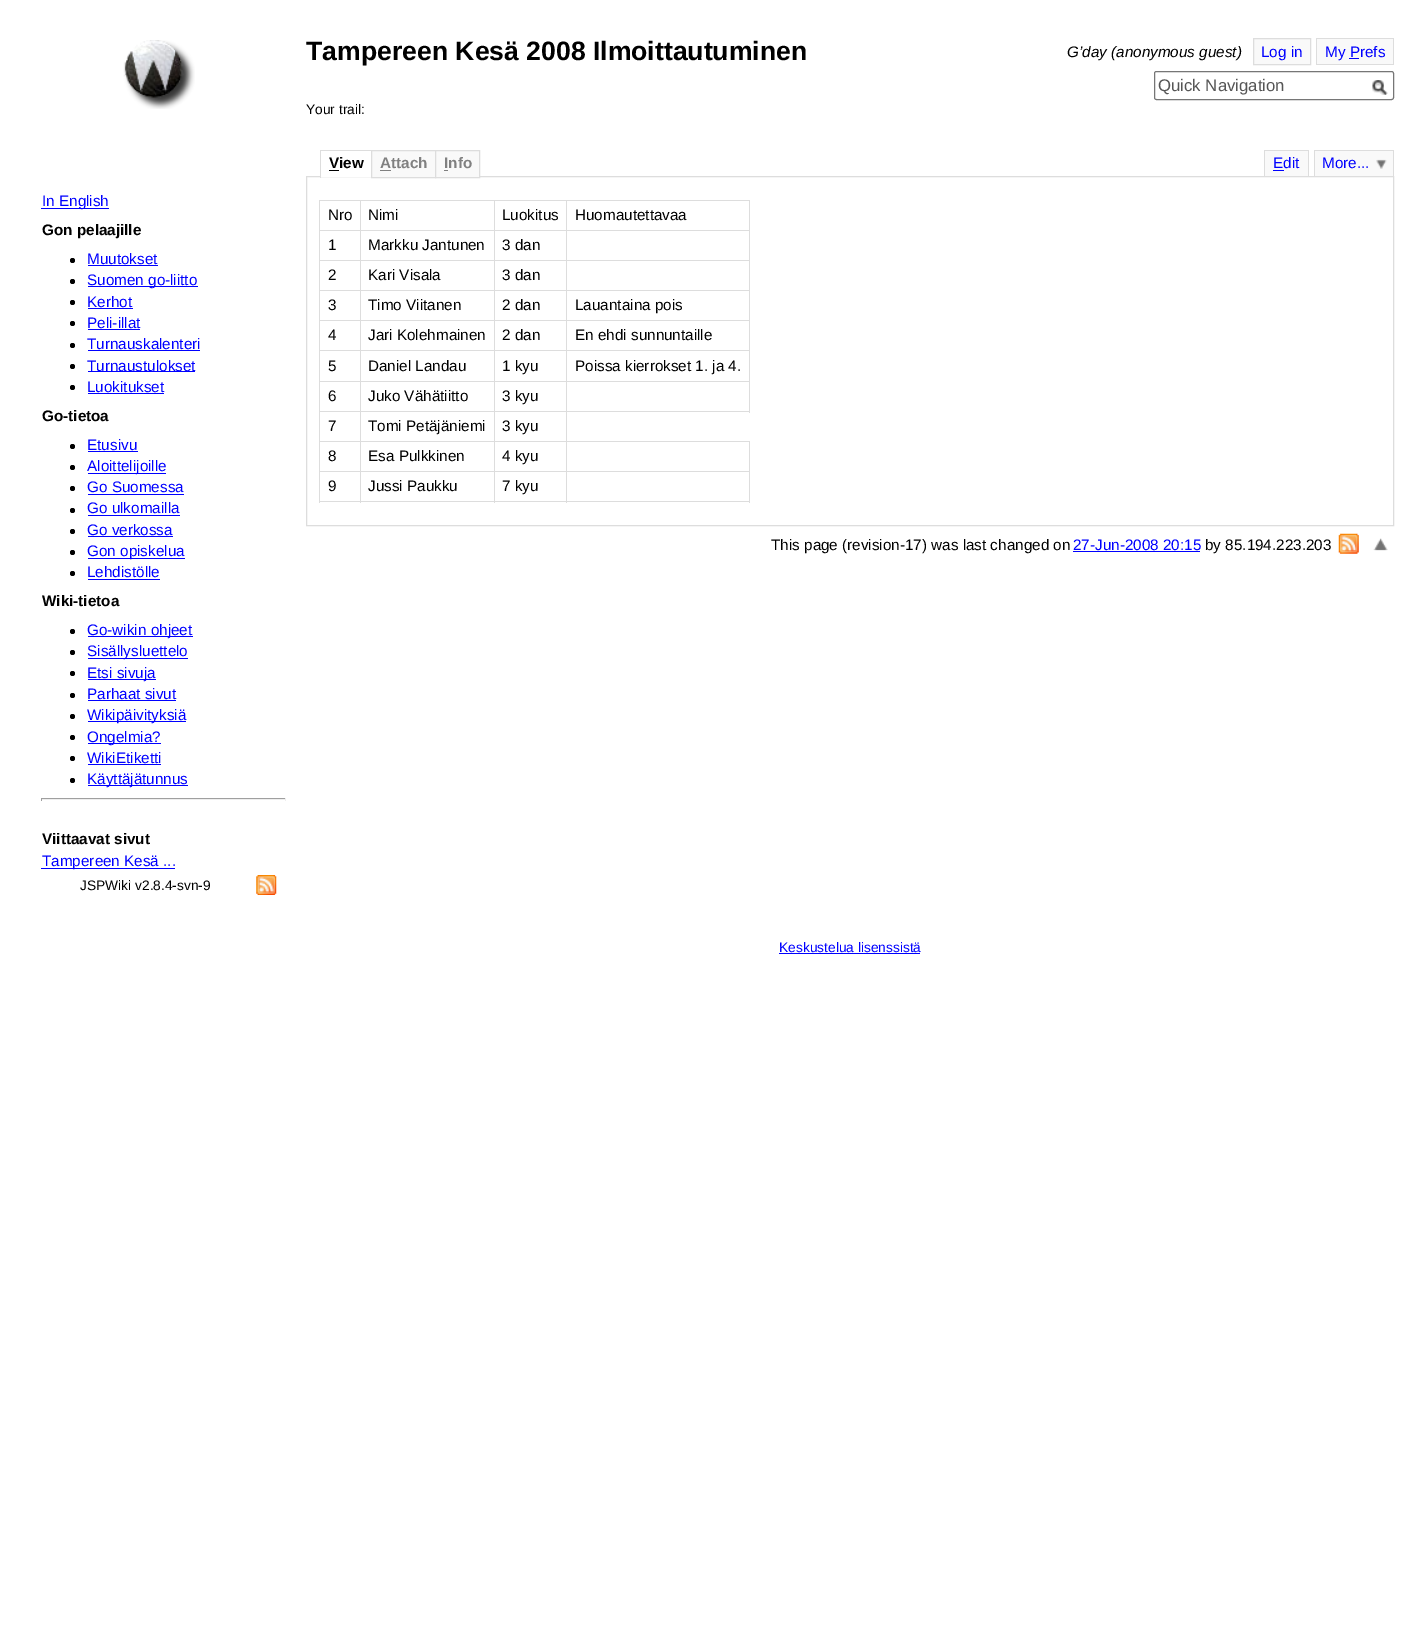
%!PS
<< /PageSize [1427 1637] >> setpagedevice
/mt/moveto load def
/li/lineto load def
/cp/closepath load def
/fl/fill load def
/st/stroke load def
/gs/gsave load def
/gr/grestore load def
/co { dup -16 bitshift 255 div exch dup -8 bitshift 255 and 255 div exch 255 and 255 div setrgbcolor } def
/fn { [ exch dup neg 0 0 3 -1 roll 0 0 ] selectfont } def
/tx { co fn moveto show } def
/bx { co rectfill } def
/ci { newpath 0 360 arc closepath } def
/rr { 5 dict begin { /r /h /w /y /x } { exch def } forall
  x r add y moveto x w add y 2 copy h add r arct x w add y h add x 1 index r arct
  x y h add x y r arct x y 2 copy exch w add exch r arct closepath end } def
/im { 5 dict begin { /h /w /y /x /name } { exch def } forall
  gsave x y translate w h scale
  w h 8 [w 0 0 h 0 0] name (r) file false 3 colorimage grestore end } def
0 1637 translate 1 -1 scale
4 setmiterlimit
0 0 1427 1637 16#FFFFFF bx
(media/1.raw) 123 40 72 69 im
16#F9F9F9 co
1253.5 38.5 mt 1310.5 38.5 li 1310.5 64.5 li 1253.5 64.5 li cp gs fl gr
16#DDDDDD co
st
1317 39 76 25 16#F9F9F9 bx
1316 38 78 1 16#DDDDDD bx
1316 64 43 1 16#DDDDDD bx
1316 38 1 27 16#DDDDDD bx
1393 38 1 27 16#DDDDDD bx
1359 64 35 1 16#DDDDDD bx
1349 58 10 1 16#0000FF bx
16#767676 co
1154.5 71.5 239 28 2 rr st
(media/2.raw) 1372 80 16 15 im
41 208 68 1 16#0000FF bx
16#000000 co
72.5 260.5 2.5 ci fl
88 265 70 1 16#0000FF bx
16#000000 co
72.5 281.5 2.5 ci fl
88 286 110 1 16#0000FF bx
16#000000 co
72.5 302.5 2.5 ci fl
88 308 45 1 16#0000FF bx
16#000000 co
72.5 323.5 2.5 ci fl
88 329 52 1 16#0000FF bx
16#000000 co
72.5 345.5 2.5 ci fl
88 350 112 1 16#0000FF bx
16#000000 co
72.5 366.5 2.5 ci fl
88 371 107 1 16#0000FF bx
16#000000 co
72.5 387.5 2.5 ci fl
88 393 76 1 16#0000FF bx
16#000000 co
72.5 446.5 2.5 ci fl
88 451 50 1 16#0000FF bx
16#000000 co
72.5 467.5 2.5 ci fl
88 473 78 1 16#0000FF bx
16#000000 co
72.5 488.5 2.5 ci fl
88 494 96 1 16#0000FF bx
16#000000 co
72.5 510.5 2.5 ci fl
88 515 92 1 16#0000FF bx
16#000000 co
72.5 531.5 2.5 ci fl
88 536 85 1 16#0000FF bx
16#000000 co
72.5 552.5 2.5 ci fl
88 558 97 1 16#0000FF bx
16#000000 co
72.5 573.5 2.5 ci fl
88 579 72 1 16#0000FF bx
16#000000 co
72.5 631.5 2.5 ci fl
88 636 105 1 16#0000FF bx
16#000000 co
72.5 652.5 2.5 ci fl
88 658 100 1 16#0000FF bx
16#000000 co
72.5 673.5 2.5 ci fl
88 679 68 1 16#0000FF bx
16#000000 co
72.5 695.5 2.5 ci fl
88 700 88 1 16#0000FF bx
16#000000 co
72.5 716.5 2.5 ci fl
88 721 98 1 16#0000FF bx
16#000000 co
72.5 737.5 2.5 ci fl
88 743 73 1 16#0000FF bx
16#000000 co
72.5 758.5 2.5 ci fl
88 764 73 1 16#0000FF bx
16#000000 co
72.5 780.5 2.5 ci fl
88 785 100 1 16#0000FF bx
41 798 245 1 16#9F9F9F bx
285 798 1 3 16#EEEEEE bx
41 799 245 1 16#EEEEEE bx
41 798 1 3 16#9F9F9F bx
41 868 134 1 16#0000FF bx
(media/3.raw) 256 875 21 20 im
320 150 53 1 16#DDDDDD bx
306.5 176.5 1087 349 rectstroke
320 176 53 1 16#FFFFFF bx
320 150 1 28 16#DDDDDD bx
329 170 10 1 16#000000 bx
16#F9F9F9 co
371.5 150.5 mt 435.5 150.5 li 435.5 177.5 li 371.5 177.5 li cp gs fl gr
16#DDDDDD co
st
380 170 11 1 16#808080 bx
16#F9F9F9 co
435.5 150.5 mt 479.5 150.5 li 479.5 177.5 li 435.5 177.5 li cp gs fl gr
16#DDDDDD co
st
444 170 4 1 16#808080 bx
1265 151 43 25 16#F9F9F9 bx
1264 150 45 1 16#DDDDDD bx
1308 150 1 26 16#DDDDDD bx
1264 150 1 26 16#DDDDDD bx
1273 170 11 1 16#0000FF bx
1315 151 78 25 16#F9F9F9 bx
(media/4.raw) 1376 159 11 10 im
1314 150 80 1 16#DDDDDD bx
1393 150 1 26 16#DDDDDD bx
1314 150 1 26 16#DDDDDD bx
566 200 184 1 16#DDDDDD bx
566 230 184 1 16#DDDDDD bx
566 260 184 1 16#DDDDDD bx
566 290 184 1 16#DDDDDD bx
566 320 184 1 16#DDDDDD bx
566 350 184 1 16#DDDDDD bx
566 381 184 1 16#DDDDDD bx
749 381 1 32 16#DDDDDD bx
494 411 74 1 16#DDDDDD bx
566 441 184 1 16#DDDDDD bx
566 471 184 1 16#DDDDDD bx
749 471 1 32 16#DDDDDD bx
566 501 184 1 16#DDDDDD bx
566 471 1 32 16#DDDDDD bx
494 471 74 1 16#DDDDDD bx
566 441 1 32 16#DDDDDD bx
494 441 74 1 16#DDDDDD bx
566 411 1 32 16#DDDDDD bx
566 411 184 1 16#DDDDDD bx
566 381 1 32 16#DDDDDD bx
494 381 74 1 16#DDDDDD bx
566 350 1 33 16#DDDDDD bx
494 350 74 1 16#DDDDDD bx
566 320 1 31 16#DDDDDD bx
494 320 74 1 16#DDDDDD bx
566 290 1 31 16#DDDDDD bx
494 290 74 1 16#DDDDDD bx
566 260 1 31 16#DDDDDD bx
494 260 74 1 16#DDDDDD bx
566 230 1 31 16#DDDDDD bx
494 230 74 1 16#DDDDDD bx
566 200 1 31 16#DDDDDD bx
494 200 74 1 16#DDDDDD bx
494 501 74 1 16#DDDDDD bx
494 471 1 32 16#DDDDDD bx
360 471 135 1 16#DDDDDD bx
494 441 1 32 16#DDDDDD bx
360 441 135 1 16#DDDDDD bx
494 411 1 32 16#DDDDDD bx
360 411 135 1 16#DDDDDD bx
494 381 1 32 16#DDDDDD bx
360 381 135 1 16#DDDDDD bx
494 350 1 33 16#DDDDDD bx
360 350 135 1 16#DDDDDD bx
494 320 1 31 16#DDDDDD bx
360 320 135 1 16#DDDDDD bx
494 290 1 31 16#DDDDDD bx
360 290 135 1 16#DDDDDD bx
494 260 1 31 16#DDDDDD bx
360 260 135 1 16#DDDDDD bx
494 230 1 31 16#DDDDDD bx
360 230 135 1 16#DDDDDD bx
494 200 1 31 16#DDDDDD bx
360 200 135 1 16#DDDDDD bx
360 501 135 1 16#DDDDDD bx
360 471 1 32 16#DDDDDD bx
319 471 42 1 16#DDDDDD bx
360 441 1 32 16#DDDDDD bx
319 441 42 1 16#DDDDDD bx
360 411 1 32 16#DDDDDD bx
319 411 42 1 16#DDDDDD bx
360 381 1 32 16#DDDDDD bx
319 381 42 1 16#DDDDDD bx
360 350 1 33 16#DDDDDD bx
319 350 42 1 16#DDDDDD bx
360 320 1 31 16#DDDDDD bx
319 320 42 1 16#DDDDDD bx
360 290 1 31 16#DDDDDD bx
319 290 42 1 16#DDDDDD bx
360 260 1 31 16#DDDDDD bx
319 260 42 1 16#DDDDDD bx
360 230 1 31 16#DDDDDD bx
319 230 42 1 16#DDDDDD bx
360 200 1 31 16#DDDDDD bx
319 200 42 1 16#DDDDDD bx
319 501 42 1 16#DDDDDD bx
319 471 1 32 16#DDDDDD bx
319 441 1 32 16#DDDDDD bx
319 411 1 32 16#DDDDDD bx
319 381 1 32 16#DDDDDD bx
319 350 1 33 16#DDDDDD bx
319 320 1 31 16#DDDDDD bx
319 290 1 31 16#DDDDDD bx
319 260 1 31 16#DDDDDD bx
319 230 1 31 16#DDDDDD bx
319 200 1 31 16#DDDDDD bx
749 350 1 33 16#DDDDDD bx
749 320 1 31 16#DDDDDD bx
749 290 1 31 16#DDDDDD bx
749 260 1 31 16#DDDDDD bx
749 230 1 31 16#DDDDDD bx
749 200 1 31 16#DDDDDD bx
749 441 1 32 16#DDDDDD bx
1073 551 127 1 16#0000FF bx
(media/5.raw) 1338 533 21 21 im
(media/6.raw) 1373 538 15 13 im
779 953 141 1 16#0000FF bx
(Tampereen Kesä 2008 Ilmoittautuminen) 306 60 /LiberationSans-Bold 26.6 16#000000 tx
(G’day \(anonymous guest\)) 1067 57 /LiberationSans-Italic 15.25 16#000000 tx
(Log in) 1261 57 /LiberationSans-Regular 15.25 16#0000FF tx
(My Prefs) 1325 57 /LiberationSans-Regular 15.25 16#0000FF tx
(Quick Navigation) 1158 91 /LiberationSans-Regular 16.75 16#555555 tx
(Your trail:) 306 114 /LiberationSans-Regular 13.75 16#000000 tx
(In English) 42 206 /LiberationSans-Regular 15.25 16#0000FF tx
(Gon pelaajille) 42 235 /LiberationSans-Bold 15.25 16#000000 tx
(Muutokset) 87 264 /LiberationSans-Regular 15.25 16#0000FF tx
(Suomen go-liitto) 87 285 /LiberationSans-Regular 15.25 16#0000FF tx
(Kerhot) 87 307 /LiberationSans-Regular 15.25 16#0000FF tx
(Peli-illat) 87 328 /LiberationSans-Regular 15.25 16#0000FF tx
(Turnauskalenteri) 87 349 /LiberationSans-Regular 15.25 16#0000FF tx
(Turnaustulokset) 87 371 /LiberationSans-Regular 15.25 16#0000FF tx
(Luokitukset) 87 392 /LiberationSans-Regular 15.25 16#0000FF tx
(Go-tietoa) 42 421 /LiberationSans-Bold 15.25 16#000000 tx
(Etusivu) 87 450 /LiberationSans-Regular 15.25 16#0000FF tx
(Aloittelijoille) 87 471 /LiberationSans-Regular 15.25 16#0000FF tx
(Go Suomessa) 87 492 /LiberationSans-Regular 15.25 16#0000FF tx
(Go ulkomailla) 87 513 /LiberationSans-Regular 15.25 16#0000FF tx
(Go verkossa) 87 535 /LiberationSans-Regular 15.25 16#0000FF tx
(Gon opiskelua) 87 556 /LiberationSans-Regular 15.25 16#0000FF tx
(Lehdistölle) 87 577 /LiberationSans-Regular 15.25 16#0000FF tx
(Wiki-tietoa) 42 606 /LiberationSans-Bold 15.25 16#000000 tx
(Go-wikin ohjeet) 87 635 /LiberationSans-Regular 15.25 16#0000FF tx
(Sisällysluettelo) 87 656 /LiberationSans-Regular 15.25 16#0000FF tx
(Etsi sivuja) 87 678 /LiberationSans-Regular 15.25 16#0000FF tx
(Parhaat sivut) 87 699 /LiberationSans-Regular 15.25 16#0000FF tx
(Wikipäivityksiä) 87 720 /LiberationSans-Regular 15.25 16#0000FF tx
(Ongelmia?) 87 742 /LiberationSans-Regular 15.25 16#0000FF tx
(WikiEtiketti) 87 763 /LiberationSans-Regular 15.25 16#0000FF tx
(Käyttäjätunnus) 87 784 /LiberationSans-Regular 15.25 16#0000FF tx
(Viittaavat sivut) 42 844 /LiberationSans-Bold 15.25 16#000000 tx
(Tampereen Kesä ...) 42 866 /LiberationSans-Regular 15.25 16#0000FF tx
(JSPWiki v2.8.4-svn-9) 80 890 /LiberationSans-Regular 13.75 16#000000 tx
(View) 329 168 /LiberationSans-Bold 15.25 16#000000 tx
(Attach) 380 168 /LiberationSans-Bold 15.25 16#808080 tx
(Info) 444 168 /LiberationSans-Bold 15.25 16#808080 tx
(Edit) 1273 168 /LiberationSans-Regular 15.25 16#0000FF tx
(More...) 1322 168 /LiberationSans-Regular 15.25 16#0000FF tx
(Nro) 328 220 /LiberationSans-Regular 15.25 16#000000 tx
(Nimi) 368 220 /LiberationSans-Regular 15.25 16#000000 tx
(Luokitus) 502 220 /LiberationSans-Regular 15.25 16#000000 tx
(Huomautettavaa) 575 220 /LiberationSans-Regular 15.25 16#000000 tx
(1) 328 250 /LiberationSans-Regular 15.25 16#000000 tx
(Markku Jantunen) 368 250 /LiberationSans-Regular 15.25 16#000000 tx
(3 dan) 502 250 /LiberationSans-Regular 15.25 16#000000 tx
(2) 328 280 /LiberationSans-Regular 15.25 16#000000 tx
(Kari Visala) 368 280 /LiberationSans-Regular 15.25 16#000000 tx
(3 dan) 502 280 /LiberationSans-Regular 15.25 16#000000 tx
(3) 328 310 /LiberationSans-Regular 15.25 16#000000 tx
(Timo Viitanen) 368 310 /LiberationSans-Regular 15.25 16#000000 tx
(2 dan) 502 310 /LiberationSans-Regular 15.25 16#000000 tx
(Lauantaina pois) 575 310 /LiberationSans-Regular 15.25 16#000000 tx
(4) 328 340 /LiberationSans-Regular 15.25 16#000000 tx
(Jari Kolehmainen) 368 340 /LiberationSans-Regular 15.25 16#000000 tx
(2 dan) 502 340 /LiberationSans-Regular 15.25 16#000000 tx
(En ehdi sunnuntaille) 575 340 /LiberationSans-Regular 15.25 16#000000 tx
(5) 328 371 /LiberationSans-Regular 15.25 16#000000 tx
(Daniel Landau) 368 371 /LiberationSans-Regular 15.25 16#000000 tx
(1 kyu) 502 371 /LiberationSans-Regular 15.25 16#000000 tx
(Poissa kierrokset 1. ja 4.) 575 371 /LiberationSans-Regular 15.25 16#000000 tx
(6) 328 401 /LiberationSans-Regular 15.25 16#000000 tx
(Juko Vähätiitto) 368 401 /LiberationSans-Regular 15.25 16#000000 tx
(3 kyu) 502 401 /LiberationSans-Regular 15.25 16#000000 tx
(7) 328 431 /LiberationSans-Regular 15.25 16#000000 tx
(Tomi Petäjäniemi) 368 431 /LiberationSans-Regular 15.25 16#000000 tx
(3 kyu) 502 431 /LiberationSans-Regular 15.25 16#000000 tx
(8) 328 461 /LiberationSans-Regular 15.25 16#000000 tx
(Esa Pulkkinen) 368 461 /LiberationSans-Regular 15.25 16#000000 tx
(4 kyu) 502 461 /LiberationSans-Regular 15.25 16#000000 tx
(9) 328 491 /LiberationSans-Regular 15.25 16#000000 tx
(Jussi Paukku) 368 491 /LiberationSans-Regular 15.25 16#000000 tx
(7 kyu) 502 491 /LiberationSans-Regular 15.25 16#000000 tx
(This page \(revision-17\) was last changed on) 771 550 /LiberationSans-Regular 15.25 16#000000 tx
(27-Jun-2008 20:15) 1073 550 /LiberationSans-Regular 15.25 16#0000FF tx
(by 85.194.223.203) 1205 550 /LiberationSans-Regular 15.25 16#000000 tx
(Keskustelua lisenssistä) 779 952 /LiberationSans-Regular 13.75 16#0000FF tx
showpage
